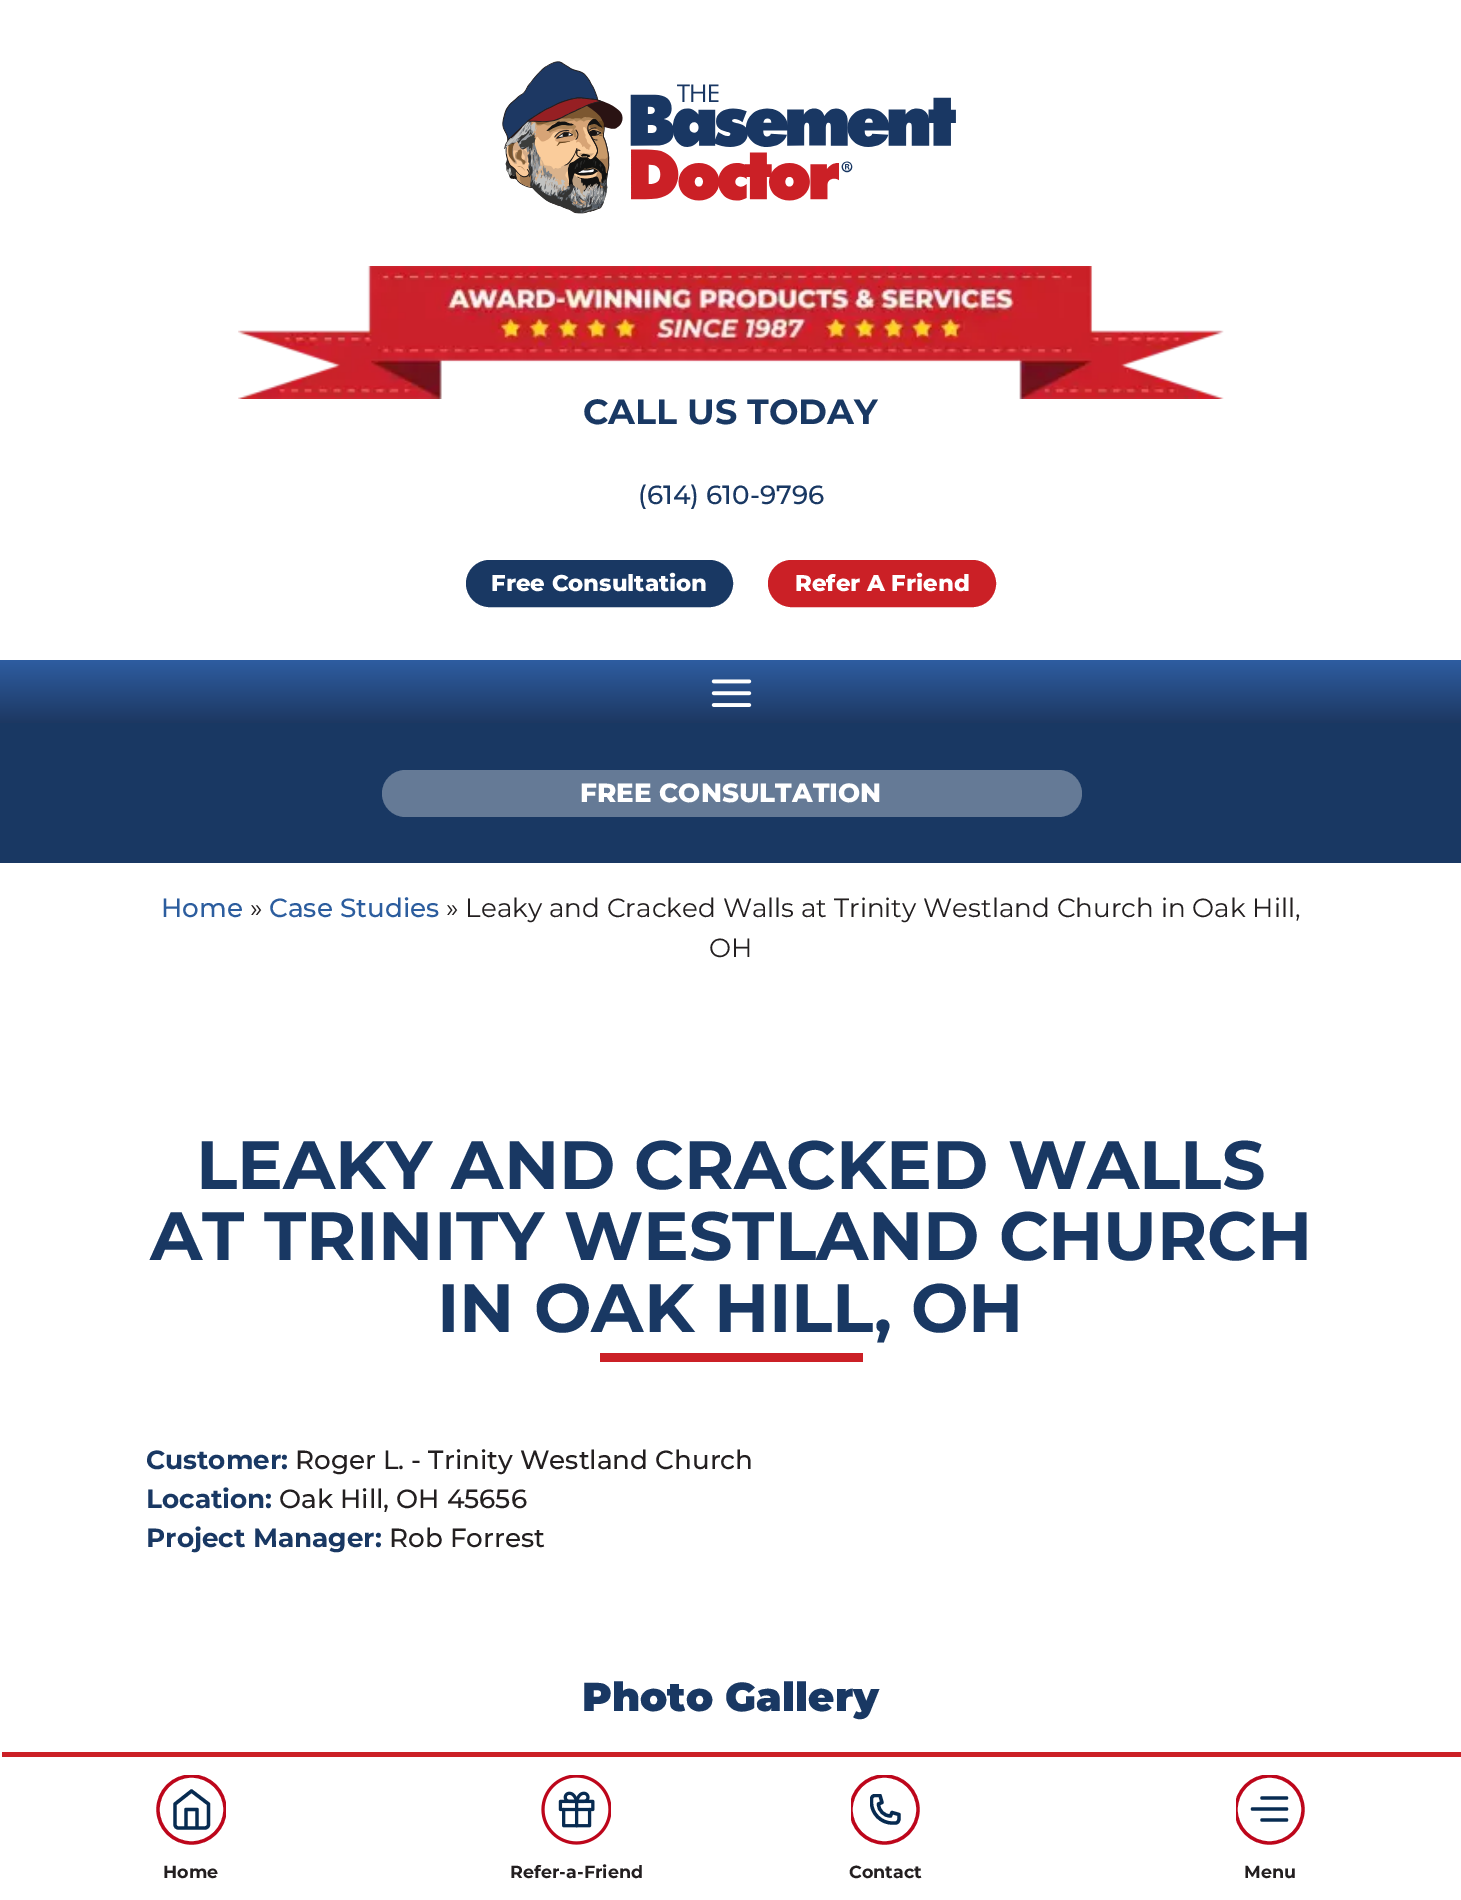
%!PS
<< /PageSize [1461 1900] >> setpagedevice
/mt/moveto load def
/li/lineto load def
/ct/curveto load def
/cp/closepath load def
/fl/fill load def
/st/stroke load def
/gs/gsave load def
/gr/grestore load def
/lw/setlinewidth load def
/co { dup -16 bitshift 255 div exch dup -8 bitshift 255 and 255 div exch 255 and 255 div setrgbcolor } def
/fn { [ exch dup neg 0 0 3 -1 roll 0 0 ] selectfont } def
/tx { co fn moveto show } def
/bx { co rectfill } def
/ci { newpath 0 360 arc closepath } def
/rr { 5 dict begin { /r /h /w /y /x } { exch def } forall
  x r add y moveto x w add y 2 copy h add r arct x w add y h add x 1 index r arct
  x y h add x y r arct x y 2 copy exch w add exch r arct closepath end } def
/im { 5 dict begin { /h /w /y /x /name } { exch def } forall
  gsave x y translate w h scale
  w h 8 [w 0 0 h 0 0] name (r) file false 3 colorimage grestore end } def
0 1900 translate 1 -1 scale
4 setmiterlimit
0 0 1461 1900 16#FFFFFF bx
(media/1.raw) 502 61 454 153 im
(media/2.raw) 238 266 986 133 im
16#193863 co
468 562 263 43 21.5 rr gs fl gr
4 lw
st
16#CB2026 co
770 562 224 43 21.5 rr gs fl gr
st
gs 0 660 mt 1461 660 li 1461 723 li 0 723 li cp clip newpath
<< /ShadingType 2 /ColorSpace /DeviceRGB /Coords [731 660 731 723] /Extend [true true] /Function << /FunctionType 2 /Domain [0 1] /C0 [.18 .365 .631] /C1 [.114 .22 .384] /N 1 >> >> shfill gr
(media/3.raw) 711 679 41 28 im
0 723 1461 140 16#193863 bx
16#657A96 co
382 770 700 47 23.5 rr fl
600 1353 263 9 16#CB2026 bx
2 1752 1459 5 16#CB2026 bx
gs
156 1775 70 70 rectclip
16#BD061B co
3.3 lw
191.5 1809.5 33.5 ci st
gr
16#072B51 co
3.3 lw
1 setlinecap
1 setlinejoin
175 1804 mt 191.5 1791 li 208.5 1804 li 208.5 1824.5 li 208.5 1826.5 207 1828 204.5 1828 ct 178.5 1828 li 176.5 1828 175 1826.5 175 1824.5 ct cp 186 1828 mt 186 1809.5 li 197 1809.5 li 197 1828 li st
(media/4.raw) 541 1775 70 70 im
gs
851 1775 70 70 rectclip
16#BD061B co
0 setlinecap
0 setlinejoin
884.5 1809.5 33.5 ci st
gr
gs
870 1794 31 31 rectclip
895.5 1823 mt 892 1823 li 881 1823 871.5 1813.5 871.5 1802.5 ct 871.5 1799 li 871.5 1797 873 1795.5 875 1795.5 ct 880 1795.5 li 882 1802.5 li 878.5 1804 li 878.5 1810.5 884 1816 890.5 1816 ct 892 1812.5 li 899 1814.5 li 899 1817 900 1823 895.5 1823 ct cp st
gr
gs
1236 1775 70 70 rectclip
16#BD061B co
0 setlinecap
0 setlinejoin
1269.5 1809.5 33.5 ci st
gr
0 setlinejoin
1262 1798 mt 1286.5 1798 li 1262 1820 mt 1286.5 1820 li 1252.5 1809 mt 1286.5 1809 li st
(CALL US TODAY) 583 424 /Montserrat-Bold 35 16#193863 tx
(\(614\) 610-9796) 638 504 /Montserrat-Medium 26.25 16#193863 tx
(Free Consultation) 491 591 /Montserrat-ExtraBold 22.75 16#FFFFFF tx
(Refer A Friend) 795 591 /Montserrat-ExtraBold 22.75 16#FFFFFF tx
(FREE CONSULTATION) 580 802 /Montserrat-ExtraBold 26.25 16#FFFFFF tx
(Home) 161 917 /Montserrat-Medium 26.25 16#2C5D9E tx
(») 250 917 /Montserrat-Regular 26.25 16#231F20 tx
(Case Studies) 269 917 /Montserrat-Medium 26.25 16#2C5D9E tx
(» Leaky and Cracked Walls at Trinity Westland Church in Oak Hill,) 446 917 /Montserrat-Regular 26.25 16#231F20 tx
(OH) 709 957 /Montserrat-Regular 26.25 16#231F20 tx
(LEAKY AND CRACKED WALLS) 196 1189 /Montserrat-Bold 68.25 16#193863 tx
(AT TRINITY WESTLAND CHURCH) 150 1260 /Montserrat-Bold 68.25 16#193863 tx
(IN OAK HILL, OH) 437 1332 /Montserrat-Bold 68.25 16#193863 tx
(Customer:) 146 1469 /Montserrat-Bold 26.25 16#193863 tx
(Roger L. - Trinity Westland Church) 295 1469 /Montserrat-Medium 26.25 16#231F20 tx
(Location:) 146 1508 /Montserrat-Bold 26.25 16#193863 tx
(Oak Hill, OH 45656) 279 1508 /Montserrat-Medium 26.25 16#231F20 tx
(Project Manager:) 146 1547 /Montserrat-Bold 26.25 16#193863 tx
(Rob Forrest) 389 1547 /Montserrat-Medium 26.25 16#231F20 tx
(Photo Gallery) 582 1711 /Montserrat-Black 40.25 16#193863 tx
(Home) 163 1878 /Montserrat-Bold 17.5 16#231F20 tx
(Refer-a-Friend) 510 1878 /Montserrat-Bold 17.5 16#231F20 tx
(Contact) 849 1878 /Montserrat-Bold 17.5 16#231F20 tx
(Menu) 1244 1878 /Montserrat-Bold 17.5 16#231F20 tx
showpage
